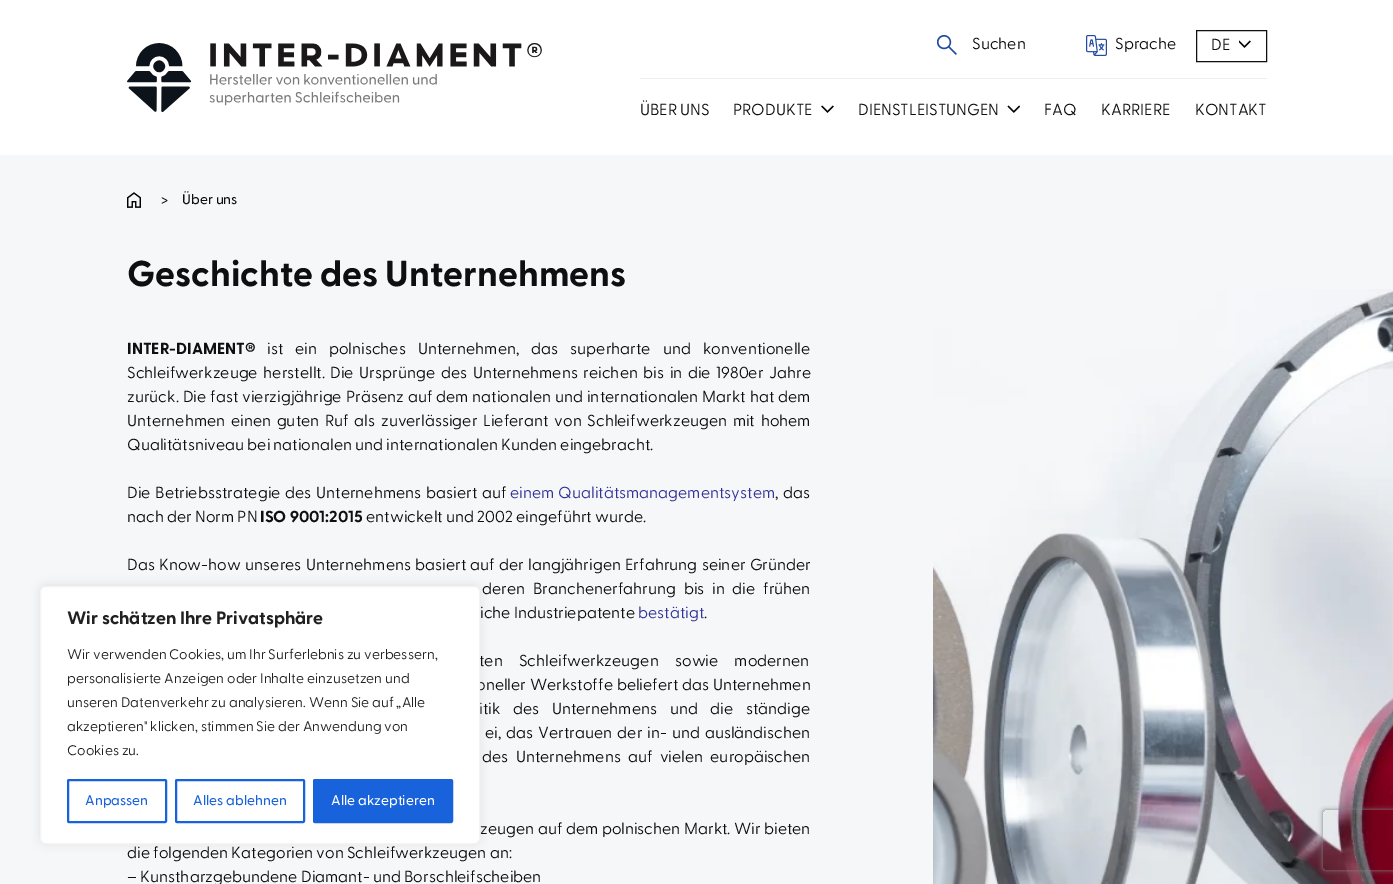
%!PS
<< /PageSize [1393 884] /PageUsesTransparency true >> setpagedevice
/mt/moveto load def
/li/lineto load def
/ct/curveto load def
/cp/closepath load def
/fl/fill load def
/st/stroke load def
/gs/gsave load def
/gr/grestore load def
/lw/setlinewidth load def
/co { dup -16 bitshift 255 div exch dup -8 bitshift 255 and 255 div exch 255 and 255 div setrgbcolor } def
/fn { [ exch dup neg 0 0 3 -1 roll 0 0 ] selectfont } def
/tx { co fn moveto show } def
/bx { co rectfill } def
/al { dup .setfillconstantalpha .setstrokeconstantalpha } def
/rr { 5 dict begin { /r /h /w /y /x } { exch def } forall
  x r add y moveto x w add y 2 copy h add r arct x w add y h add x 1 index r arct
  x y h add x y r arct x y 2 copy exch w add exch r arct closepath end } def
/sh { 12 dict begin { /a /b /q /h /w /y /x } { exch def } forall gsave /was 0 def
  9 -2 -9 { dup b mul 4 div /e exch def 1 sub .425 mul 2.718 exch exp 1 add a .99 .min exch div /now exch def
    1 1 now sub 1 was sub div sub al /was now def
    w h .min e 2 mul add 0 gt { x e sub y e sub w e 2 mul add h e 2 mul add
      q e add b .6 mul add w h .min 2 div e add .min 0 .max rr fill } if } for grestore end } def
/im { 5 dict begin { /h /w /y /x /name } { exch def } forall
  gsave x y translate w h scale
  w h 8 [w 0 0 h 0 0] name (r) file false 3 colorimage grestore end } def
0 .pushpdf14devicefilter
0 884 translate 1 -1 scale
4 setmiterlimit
0 0 1393 884 16#FFFFFF bx
(media/1.raw) 127 43 415 69 im
(media/2.raw) 937 35 20 20 im
(media/3.raw) 1086 35 21 21 im
16#0F0E12 co
1196.5 30.5 70 31 rectstroke
(media/4.raw) 1239 40 12 8 im
640 78 627 1 16#EDEDED bx
(media/5.raw) 821 105 13 8 im
(media/6.raw) 1007 105 13 8 im
0 155 1393 729 16#F6F7F9 bx
(media/7.raw) 127 192 14 16 im
(media/8.raw) 933 289 460 595 im
16#ACABAB co
40 585 440 258 6 5 .3 sh
gs
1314 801 mt 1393 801 li 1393 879 li 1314 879 li cp 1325 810 mt 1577 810 li 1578 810 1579 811 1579 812 ct 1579 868 li 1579 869 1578 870 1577 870 ct 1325 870 li 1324 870 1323 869 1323 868 ct 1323 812 li 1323 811 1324 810 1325 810 ct cp eoclip newpath
16#808080 co
1323 810 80 60 2 2.5 1 sh
gr
(Suchen) 972 49 /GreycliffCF-Regular 16 16#0F0E12 tx
(Sprache) 1115 49 /GreycliffCF-Regular 16 16#0F0E12 tx
(DE) 1211 50 /GreycliffCF-Regular 16 16#0F0E12 tx
(ÜBER UNS) 640 115 /GreycliffCF-Regular 16 16#0F0E12 tx
(PRODUKTE) 733 115 /GreycliffCF-Regular 16 16#0F0E12 tx
(DIENSTLEISTUNGEN) 858 115 /GreycliffCF-Regular 16 16#0F0E12 tx
(FAQ) 1044 115 /GreycliffCF-Regular 16 16#0F0E12 tx
(KARRIERE) 1101 115 /GreycliffCF-Regular 16 16#0F0E12 tx
(KONTAKT) 1195 115 /GreycliffCF-Regular 16 16#0F0E12 tx
(>) 161 204 /GreycliffCF-Medium 14 16#0F0E12 tx
(Über uns) 182 204 /GreycliffCF-Medium 14 16#0F0E12 tx
(Geschichte des Unternehmens) 127 286 /GreycliffCF-Bold 36 16#0F0E12 tx
(INTER-DIAMENT®) 127 354 /GreycliffCF-Bold 16 16#0F0E12 tx
/GreycliffCF-Regular 16 fn
267 354 mt 8.75 0 32 (ist ein polnisches Unternehmen, das superharte und konventionelle) widthshow
127 378 mt 2.4 0 32 (Schleifwerkzeuge herstellt. Die Ursprünge des Unternehmens reichen bis in die 1980er Jahre) widthshow
127 402 mt .75 0 32 (zurück. Die fast vierzigjährige Präsenz auf dem nationalen und internationalen Markt hat dem) widthshow
127 426 mt 2.5 0 32 (Unternehmen einen guten Ruf als zuverlässiger Lieferant von Schleifwerkzeugen mit hohem) widthshow
(Qualitätsniveau bei nationalen und internationalen Kunden eingebracht.) 127 450 /GreycliffCF-Regular 16 16#0F0E12 tx
127 498 mt 1.5 0 32 (Die Betriebsstrategie des Unternehmens basiert auf) widthshow
16#333399 co
510 498 mt 1 0 32 (einem Qualitätsmanagementsystem) widthshow
16#0F0E12 co
775 498 mt 1 0 32 (, das) widthshow
(nach der Norm PN) 127 522 /GreycliffCF-Regular 16 16#0F0E12 tx
(ISO 9001:2015) 260 522 /GreycliffCF-Bold 16 16#0F0E12 tx
(entwickelt und 2002 eingeführt wurde.) 366 522 /GreycliffCF-Regular 16 16#0F0E12 tx
127 570 mt 1 0 32 (Das Know-how unseres Unternehmens basiert auf der langjährigen Erfahrung seiner Gründer) widthshow
482 594 mt 4.5 0 32 (deren Branchenerfahrung bis in die frühen) widthshow
(iche Industriepatente) 480 618 /GreycliffCF-Regular 16 16#0F0E12 tx
(bestätigt) 638 618 /GreycliffCF-Regular 16 16#333399 tx
(.) 704 618 /GreycliffCF-Regular 16 16#0F0E12 tx
479 666 mt 13 0 32 (ten Schleifwerkzeugen sowie modernen) widthshow
476 690 mt .5 0 32 (oneller Werkstoffe beliefert das Unternehmen) widthshow
479 714 mt 9.5 0 32 (itik des Unternehmens und die ständige) widthshow
485 738 mt 1.75 0 32 (ei, das Vertrauen der in- und ausländischen) widthshow
482 762 mt 4 0 32 (des Unternehmens auf vielen europäischen) widthshow
480 834 mt .25 0 32 (zeugen auf dem polnischen Markt. Wir bieten) widthshow
(die folgenden Kategorien von Schleifwerkzeugen an:) 127 858 /GreycliffCF-Regular 16 16#0F0E12 tx
(– Kunstharzgebundene Diamant- und Borschleifscheiben) 127 882 /GreycliffCF-Regular 16 16#0F0E12 tx
16#FFFFFF co
40.5 586.5 439 257 5.5 rr gs fl gr
16#F4F4F4 co
st
(Wir schätzen Ihre Privatsphäre) 67 624 /GreycliffCF-Bold 18 16#212121 tx
(Wir verwenden Cookies, um Ihr Surferlebnis zu verbessern,) 67 659 /GreycliffCF-Regular 14 16#212121 tx
(personalisierte Anzeigen oder Inhalte einzusetzen und) 67 683 /GreycliffCF-Regular 14 16#212121 tx
(unseren Datenverkehr zu analysieren. Wenn Sie auf „Alle) 67 707 /GreycliffCF-Regular 14 16#212121 tx
(akzeptieren" klicken, stimmen Sie der Anwendung von) 67 731 /GreycliffCF-Regular 14 16#212121 tx
(Cookies zu.) 67 755 /GreycliffCF-Regular 14 16#212121 tx
16#1863DC co
2 lw
68 780 98 42 1 rr st
(Anpassen) 85 805 /GreycliffCF-Medium 14 16#1863DC tx
176 780 128 42 1 rr st
(Alles ablehnen) 193 805 /GreycliffCF-Medium 14 16#1863DC tx
314 780 138 42 1 rr gs fl gr
st
(Alle akzeptieren) 331 805 /GreycliffCF-Medium 14 16#FFFFFF tx
.poppdf14devicefilter showpage
